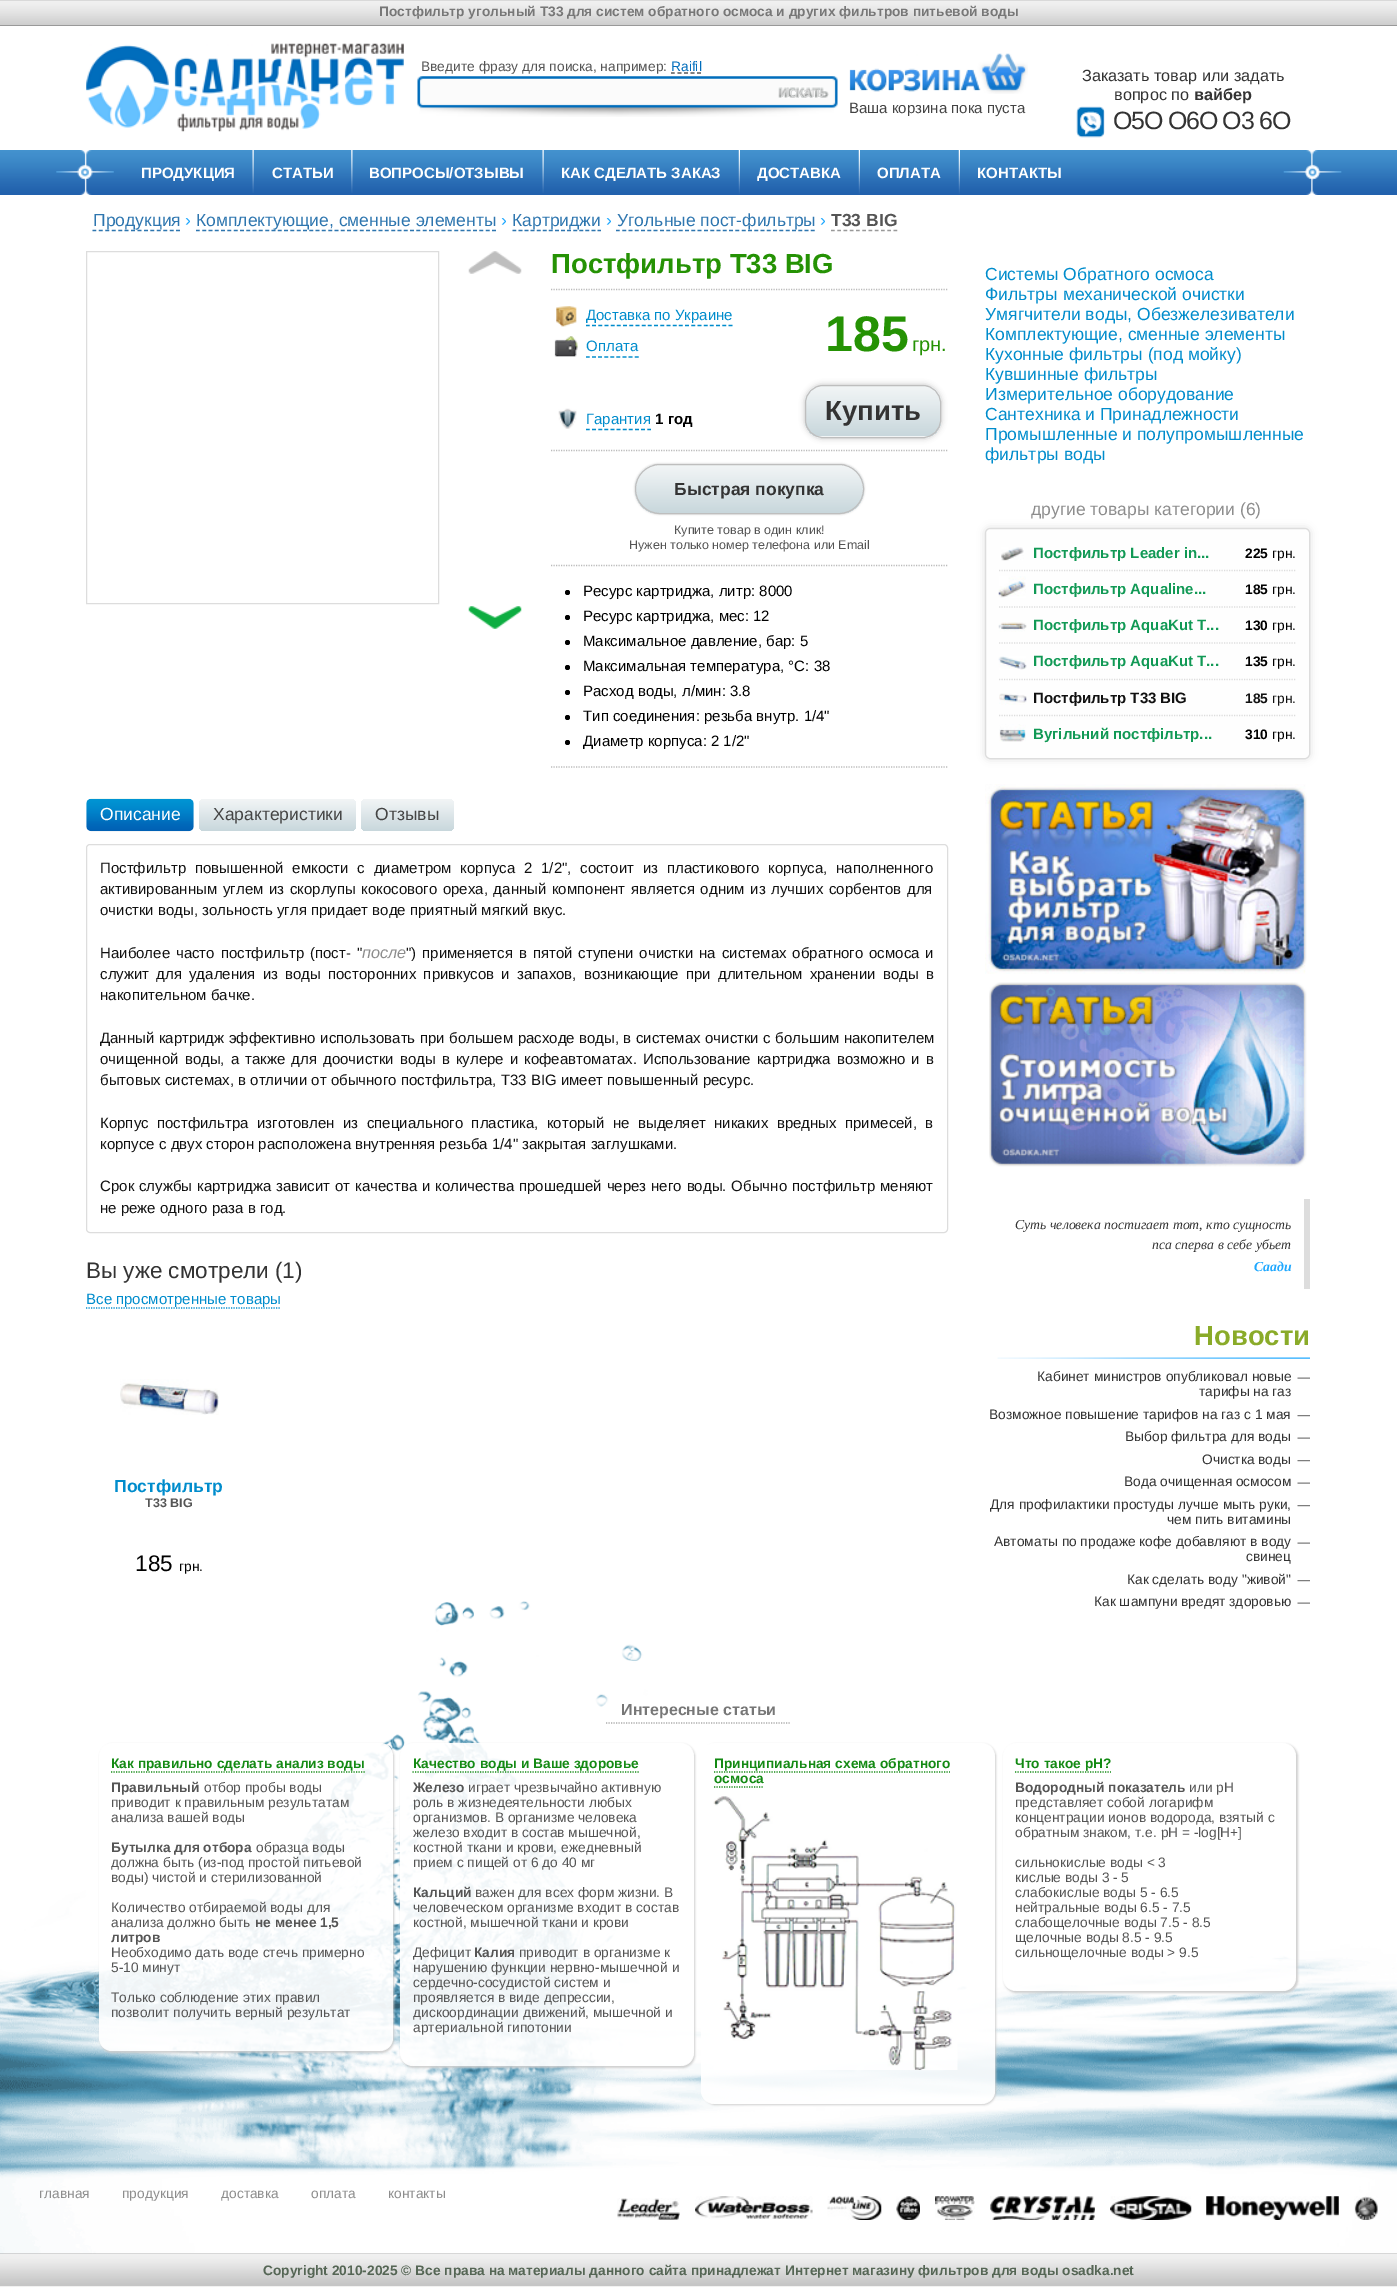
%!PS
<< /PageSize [1397 2288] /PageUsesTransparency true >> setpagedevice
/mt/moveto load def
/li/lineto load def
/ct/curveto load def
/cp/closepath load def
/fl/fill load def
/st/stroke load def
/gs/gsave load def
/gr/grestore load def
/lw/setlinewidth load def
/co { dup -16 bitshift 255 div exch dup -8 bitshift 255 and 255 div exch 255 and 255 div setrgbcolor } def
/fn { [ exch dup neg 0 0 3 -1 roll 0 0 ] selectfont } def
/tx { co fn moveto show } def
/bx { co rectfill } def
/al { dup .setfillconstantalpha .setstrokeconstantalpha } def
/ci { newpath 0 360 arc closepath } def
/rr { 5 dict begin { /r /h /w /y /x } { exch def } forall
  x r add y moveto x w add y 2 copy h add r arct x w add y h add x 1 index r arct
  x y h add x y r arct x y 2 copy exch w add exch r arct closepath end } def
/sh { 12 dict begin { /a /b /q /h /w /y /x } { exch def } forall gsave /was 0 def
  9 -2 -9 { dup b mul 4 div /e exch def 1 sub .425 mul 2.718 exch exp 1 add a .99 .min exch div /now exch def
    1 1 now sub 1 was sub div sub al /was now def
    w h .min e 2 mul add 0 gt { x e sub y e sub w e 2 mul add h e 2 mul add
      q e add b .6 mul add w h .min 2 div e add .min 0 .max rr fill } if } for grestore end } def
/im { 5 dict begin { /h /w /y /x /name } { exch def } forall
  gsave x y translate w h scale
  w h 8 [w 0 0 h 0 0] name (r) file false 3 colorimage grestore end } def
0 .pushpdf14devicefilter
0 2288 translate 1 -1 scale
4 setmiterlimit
0 0 1397 2288 16#FFFFFF bx
(media/1.raw) 0 1601 1397 653 im
16#999999 co
0 25 mt 0 26 li 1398 26 li 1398 1 li 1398 25 li cp fl
(media/2.raw) 0 0 1397 25 im
(media/3.raw) 86 43 318 89 im
16#555555 co
1.2 lw
[3.75 2.81] 0 setdash
671 73 mt 701 73 li st
(media/4.raw) 417 76 421 41 im
(media/5.raw) 849 53 179 41 im
(media/6.raw) 1076 106 29 32 im
(media/7.raw) 0 150 1397 45 im
(media/8.raw) 252 150 2 43 im
(media/9.raw) 351 150 2 43 im
(media/8.raw) 542 150 2 43 im
(media/10.raw) 738 150 2 44 im
(media/10.raw) 858 150 2 44 im
(media/10.raw) 958 150 2 44 im
16#2E76AF co
[3.75 2.69] 0 setdash
92.5 230.5 mt 180 230.5 li st
[3.75 2.55] 0 setdash
196 230.5 mt 496 230.5 li st
[3.75 2.33] 0 setdash
512.5 230.5 mt 601 230.5 li st
[3.75 2.54] 0 setdash
616 230.5 mt 815 230.5 li st
16#999999 co
[3.75 2.5] 0 setdash
831 230.5 mt 897.5 230.5 li st
16#DDDDDD co
1 lw
[] 0 setdash
86.5 251.5 352 352 rectstroke
(media/11.raw) 468 251 54 23 im
(media/12.raw) 468 606 54 23 im
16#BBBBBB co
1.2 lw
[1.25 1.25] 0 setdash
551 289.5 mt 947.5 289.5 li st
551 450.5 mt 947.5 450.5 li st
(media/13.raw) 556 306 21 21 im
16#008CCC co
[3.75 2.45] 0 setdash
586 325.5 mt 732.5 325.5 li st
(media/14.raw) 554 336 24 21 im
[3.75 2.35] 0 setdash
586 357 mt 639 357 li st
(media/15.raw) 558 408 19 21 im
[3.75 2.38] 0 setdash
586 429.5 mt 651 429.5 li st
16#BBBBBB co
805 385 136 53 18 3 1 sh
gs
805 385 136 53 18 rr clip newpath
gs 805 386 mt 941 386 li 941 436 li 805 436 li cp clip newpath
<< /ShadingType 2 /ColorSpace /DeviceRGB /Coords [873 386 873 436] /Extend [true true] /Function << /FunctionType 3 /Domain [0 1] /Functions [<< /FunctionType 2 /Domain [0 1] /C0 [.949 .961 .965] /C1 [.89 .918 .929] /N 1 >> << /FunctionType 2 /Domain [0 1] /C0 [.89 .918 .929] /C1 [.784 .843 .863] /N 1 >>] /Bounds [.37] /Encode [0 1 0 1] >> >> shfill gr
gs 815 436 mt 931 436 li 931 438 li 815 438 li cp clip newpath
<< /ShadingType 2 /ColorSpace /DeviceRGB /Coords [873 436 873 486] /Extend [true true] /Function << /FunctionType 3 /Domain [0 1] /Functions [<< /FunctionType 2 /Domain [0 1] /C0 [.949 .961 .965] /C1 [.89 .918 .929] /N 1 >> << /FunctionType 2 /Domain [0 1] /C0 [.89 .918 .929] /C1 [.784 .843 .863] /N 1 >>] /Bounds [.37] /Encode [0 1 0 1] >> >> shfill gr
gr
16#BEBEBE co
1 lw
[] 0 setdash
805.5 385.5 135 52 17.5 rr st
16#BBBBBB co
1.2 lw
[1.25 1.25] 0 setdash
551 565.5 mt 947.5 565.5 li st
635 464 229 50 25 1 1 sh
gs
635 464 229 50 25 rr clip newpath
gs 635 465 mt 864 465 li 864 513 li 635 513 li cp clip newpath
<< /ShadingType 2 /ColorSpace /DeviceRGB /Coords [749 465 749 513] /Extend [true true] /Function << /FunctionType 3 /Domain [0 1] /Functions [<< /FunctionType 2 /Domain [0 1] /C0 [.949 .961 .965] /C1 [.89 .918 .929] /N 1 >> << /FunctionType 2 /Domain [0 1] /C0 [.89 .918 .929] /C1 [.784 .843 .863] /N 1 >>] /Bounds [.37] /Encode [0 1 0 1] >> >> shfill gr
gr
16#BEBEBE co
1 lw
[] 0 setdash
635.5 464.5 228 49 24.5 rr st
16#BBBBBB co
1.2 lw
[1.25 1.25] 0 setdash
551 767 mt 947.5 767 li st
16#000000 co
567.5 592.5 2.5 ci fl
567.5 617.5 2.5 ci fl
567.5 642.5 2.5 ci fl
567.5 667.5 2.5 ci fl
567.5 692.5 2.5 ci fl
567.5 717.5 2.5 ci fl
567.5 742.5 2.5 ci fl
(media/16.raw) 86 798 108 34 im
gs 199 799 157 32 5 rr clip newpath
<< /ShadingType 2 /ColorSpace /DeviceRGB /Coords [278 799 278 831] /Extend [true true] /Function << /FunctionType 3 /Domain [0 1] /Functions [<< /FunctionType 2 /Domain [0 1] /C0 [.949 .961 .965] /C1 [.89 .918 .929] /N 1 >> << /FunctionType 2 /Domain [0 1] /C0 [.89 .918 .929] /C1 [.784 .843 .863] /N 1 >>] /Bounds [.37] /Encode [0 1 0 1] >> >> shfill gr
gs 361 799 93 32 5 rr clip newpath
<< /ShadingType 2 /ColorSpace /DeviceRGB /Coords [408 799 408 831] /Extend [true true] /Function << /FunctionType 3 /Domain [0 1] /Functions [<< /FunctionType 2 /Domain [0 1] /C0 [.949 .961 .965] /C1 [.89 .918 .929] /N 1 >> << /FunctionType 2 /Domain [0 1] /C0 [.89 .918 .929] /C1 [.784 .843 .863] /N 1 >>] /Bounds [.37] /Encode [0 1 0 1] >> >> shfill gr
16#DDDDDD co
1 lw
[] 0 setdash
86.5 844.5 861 388 3.5 rr st
16#008CCC co
1.2 lw
[1.25 1.25] 0 setdash
86 1308 mt 281 1308 li st
(media/17.raw) 120 1379 99 36 im
16#DDDDDD co
985 528 325 231 5 4 1 sh
16#FEFEFE co
985.5 528.5 324 230 4.5 rr gs fl gr
16#DDDDDD co
1 lw
[] 0 setdash
st
1.2 lw
[1.25 1.25] 0 setdash
999 570.5 mt 1296 570.5 li st
(media/18.raw) 1001 547 23 14 im
999 607 mt 1296 607 li st
(media/19.raw) 998 576 28 22 im
999 643 mt 1296 643 li st
(media/20.raw) 998 622 29 10 im
999 679.5 mt 1296 679.5 li st
(media/21.raw) 998 656 29 14 im
999 715.5 mt 1296 715.5 li st
(media/22.raw) 999 693 28 12 im
(media/23.raw) 999 724 27 18 im
(media/24.raw) 985 784 322 190 im
(media/25.raw) 989 982 318 185 im
1304 1199 6 90 16#DDDDDD bx
(media/26.raw) 997 1357 313 2 im
(media/27.raw) 1297 1377 13 2 im
(media/28.raw) 1297 1415 13 2 im
(media/27.raw) 1297 1437 13 2 im
(media/28.raw) 1297 1460 13 2 im
(media/27.raw) 1297 1482 13 2 im
(media/28.raw) 1297 1505 13 2 im
(media/27.raw) 1297 1542 13 2 im
(media/28.raw) 1297 1580 13 2 im
(media/27.raw) 1297 1602 13 2 im
16#AAAAAA co
606 1723 mt 791 1723 li st
gs
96 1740 mt 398 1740 li 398 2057 li 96 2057 li cp 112 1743 mt 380 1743 li 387 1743 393 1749 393 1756 ct 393 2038 li 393 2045 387 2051 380 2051 ct 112 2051 li 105 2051 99 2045 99 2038 ct 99 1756 li 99 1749 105 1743 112 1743 ct cp eoclip newpath
16#CCCCCC co
100 1744 294 309 13 1 .92 sh
gr
0.92 al
16#FFFFFF co
99 1743 294 308 13 rr fl
16#008000 co
111 1772 mt 365 1772 li st
gs
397 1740 mt 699 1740 li 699 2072 li 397 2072 li cp 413 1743 mt 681 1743 li 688 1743 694 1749 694 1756 ct 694 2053 li 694 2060 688 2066 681 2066 ct 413 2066 li 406 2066 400 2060 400 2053 ct 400 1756 li 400 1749 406 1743 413 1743 ct cp eoclip newpath
1 al
16#CCCCCC co
401 1744 294 324 13 1 .92 sh
gr
16#FFFFFF co
400 1743 294 323 13 rr fl
16#008000 co
412.5 1772 mt 639 1772 li st
gs
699 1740 mt 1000 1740 li 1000 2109 li 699 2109 li cp 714 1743 mt 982 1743 li 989 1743 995 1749 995 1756 ct 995 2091 li 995 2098 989 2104 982 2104 ct 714 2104 li 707 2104 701 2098 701 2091 ct 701 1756 li 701 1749 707 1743 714 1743 ct cp eoclip newpath
1 al
16#CCCCCC co
703 1744 293 361 13 1 .92 sh
gr
16#FFFFFF co
701 1743 294 361 13 rr fl
1 al
16#148A14 co
714 1772 mt 950 1772 li st
714 1787 mt 764 1787 li st
(media/29.raw) 713 1796 245 274 im
gs
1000 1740 mt 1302 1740 li 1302 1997 li 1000 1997 li cp 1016 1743 mt 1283 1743 li 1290 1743 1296 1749 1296 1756 ct 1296 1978 li 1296 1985 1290 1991 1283 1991 ct 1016 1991 li 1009 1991 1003 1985 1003 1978 ct 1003 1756 li 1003 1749 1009 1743 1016 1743 ct cp eoclip newpath
16#CCCCCC co
1004 1744 294 249 13 1 .92 sh
gr
0.92 al
16#FFFFFF co
1003 1743 293 248 13 rr fl
1 al
16#148A14 co
1015 1772 mt 1111 1772 li st
(media/30.raw) 617 2198 63 22 im
(media/31.raw) 695 2196 118 23 im
(media/32.raw) 827 2196 55 24 im
(media/33.raw) 896 2196 24 24 im
(media/34.raw) 935 2196 40 24 im
(media/35.raw) 990 2196 105 24 im
(media/36.raw) 1110 2196 82 24 im
(media/37.raw) 1206 2196 133 24 im
(media/38.raw) 1354 2196 24 24 im
(media/39.raw) 0 2253 1397 34 im
(Постфильтр угольный T33 для систем обратного осмоса и других фильтров питьевой воды) 379 16 /LiberationSans-Bold 13.75 16#777777 tx
(Введите фразу для поиска, например:) 421 71 /LiberationSans-Regular 13.75 16#555555 tx
(Raifil) 671 71 /LiberationSans-Regular 13.75 16#006DBC tx
(Искать) 780 97 /LiberationSans-Regular 13.75 16#D5D6D6 tx
(Ваша корзина пока пуста) 849 113 /LiberationSans-Regular 15 16#444444 tx
(Заказать товар или задать) 1082 81 /LiberationSans-Regular 16.25 16#333333 tx
(вопрос по) 1114 100 /LiberationSans-Regular 16.25 16#333333 tx
(вайбер) 1194 100 /LiberationSans-Bold 16.25 16#333333 tx
/LiberationSans-Regular 25 fn
1113 129 mt -1.25 0 (О5О O6O O3 6O) ashow
(ПРОДУКЦИЯ) 141 178 /LiberationSans-Bold 15 16#FFFFFF tx
(СТАТЬИ) 272 178 /LiberationSans-Bold 15 16#FFFFFF tx
(ВОПРОСЫ/ОТЗЫВЫ) 369 178 /LiberationSans-Bold 15 16#FFFFFF tx
(КАК СДЕЛАТЬ ЗАКАЗ) 561 178 /LiberationSans-Bold 15 16#FFFFFF tx
(ДОСТАВКА) 757 178 /LiberationSans-Bold 15 16#FFFFFF tx
(ОПЛАТА) 877 178 /LiberationSans-Bold 15 16#FFFFFF tx
(КОНТАКТЫ) 977 178 /LiberationSans-Bold 15 16#FFFFFF tx
(Продукция) 93 226 /LiberationSans-Regular 17.5 16#2E76AF tx
(›) 185 226 /LiberationSans-Regular 17.5 16#1FA8FF tx
(Комплектующие, сменные элементы) 196 226 /LiberationSans-Regular 17.5 16#2E76AF tx
(›) 501 226 /LiberationSans-Regular 17.5 16#1FA8FF tx
(Картриджи) 512 226 /LiberationSans-Regular 17.5 16#2E76AF tx
(›) 606 226 /LiberationSans-Regular 17.5 16#1FA8FF tx
(Угольные пост-фильтры) 617 226 /LiberationSans-Regular 17.5 16#2E76AF tx
(›) 820 226 /LiberationSans-Regular 17.5 16#1FA8FF tx
(T33 BIG) 831 226 /LiberationSans-Bold 17.5 16#555555 tx
(Постфильтр T33 BIG) 551 273 /LiberationSans-Bold 27.5 16#259204 tx
(Доставка по Украине) 586 320 /LiberationSans-Regular 15 16#008CCC tx
(Оплата) 586 351 /LiberationSans-Regular 15 16#008CCC tx
(Гарантия) 586 424 /LiberationSans-Regular 15 16#008CCC tx
(1 год) 655 424 /LiberationSans-Bold 15 16#000000 tx
(185) 825 351 /LiberationSans-Bold 50 16#259204 tx
(грн.) 912 351 /LiberationSans-Regular 20 16#259204 tx
(Купить) 825 420 /LiberationSans-Bold 27.5 16#333333 tx
(Быстрая покупка) 674 495 /LiberationSans-Bold 17.5 16#333333 tx
(Купите товар в один клик!) 674 534 /LiberationSans-Regular 12.5 16#555555 tx
(Нужен только номер телефона или Email) 629 549 /LiberationSans-Regular 12.5 16#555555 tx
(Ресурс картриджа, литр: 8000) 583 596 /LiberationSans-Regular 15 16#000000 tx
(Ресурс картриджа, мес: 12) 583 621 /LiberationSans-Regular 15 16#000000 tx
(Максимальное давление, бар: 5) 583 646 /LiberationSans-Regular 15 16#000000 tx
(Максимальная температура, °C: 38) 583 671 /LiberationSans-Regular 15 16#000000 tx
(Расход воды, л/мин: 3.8) 583 696 /LiberationSans-Regular 15 16#000000 tx
(Тип соединения: резьба внутр. 1/4") 583 721 /LiberationSans-Regular 15 16#000000 tx
(Диаметр корпуса: 2 1/2") 583 746 /LiberationSans-Regular 15 16#000000 tx
(Описание) 100 820 /LiberationSans-Regular 17.5 16#FFFFFF tx
(Характеристики) 213 820 /LiberationSans-Regular 17.5 16#444444 tx
(Отзывы) 375 820 /LiberationSans-Regular 17.5 16#444444 tx
/LiberationSans-Regular 15 fn
16#111111 co
100 873 mt 4.6 0 32 (Постфильтр повышенной емкости с диаметром корпуса 2 1/2", состоит из пластикового корпуса, наполненного) widthshow
100 894 mt 1.5 0 32 (активированным углем из скорлупы кокосового ореха, данный компонент является одним из лучших сорбентов для) widthshow
(очистки воды, зольность угля придает воде приятный мягкий вкус.) 100 915 /LiberationSans-Regular 15 16#111111 tx
100 958 mt 1.75 0 32 (Наиболее часто постфильтр \(пост- ") widthshow
(после) 362 958 /LiberationSans-Italic 16.25 16#8D8D8D tx
/LiberationSans-Regular 15 fn
16#111111 co
406 958 mt 1.75 0 32 ("\) применяется в пятой ступени очистки на системах обратного осмоса и) widthshow
100 979 mt 3 0 32 (служит для удаления из воды посторонних привкусов и запахов, возникающие при длительном хранении воды в) widthshow
(накопительном бачке.) 100 1000 /LiberationSans-Regular 15 16#111111 tx
100 1043 mt .25 0 32 (Данный картридж эффективно использовать при большем расходе воды, в системах очистки с большим накопителем) widthshow
100 1064 mt 1.9 0 32 (очищенной воды, а также для доочистки воды в кулере и кофеавтоматах. Использование картриджа возможно и в) widthshow
(бытовых системах, в отличии от обычного постфильтра, T33 BIG имеет повышенный ресурс.) 100 1085 /LiberationSans-Regular 15 16#111111 tx
100 1128 mt 4.25 0 32 (Корпус постфильтра изготовлен из специального пластика, который не выделяет никаких вредных примесей, в) widthshow
(корпусе с двух сторон расположена внутренняя резьба 1/4" закрытая заглушками.) 100 1149 /LiberationSans-Regular 15 16#111111 tx
100 1191 mt .75 0 32 (Срок службы картриджа зависит от качества и количества прошедшей через него воды. Обычно постфильтр меняют) widthshow
(не реже одного раза в год.) 100 1213 /LiberationSans-Regular 15 16#111111 tx
(Вы уже смотрели \(1\)) 86 1278 /LiberationSans-Regular 22.5 16#333333 tx
(Все просмотренные товары) 86 1304 /LiberationSans-Regular 15 16#008CCC tx
(Постфильтр) 114 1492 /LiberationSans-Bold 17.5 16#008CCC tx
(T33 BIG) 145 1507 /LiberationSans-Bold 12.5 16#555555 tx
(185) 135 1571 /LiberationSans-Regular 22.5 16#000000 tx
(грн.) 179 1571 /LiberationSans-Regular 13.75 16#000000 tx
(Системы Обратного осмоса) 985 280 /LiberationSans-Regular 17.5 16#008CCC tx
(Фильтры механической очистки) 985 300 /LiberationSans-Regular 17.5 16#008CCC tx
(Умягчители воды, Обезжелезиватели) 985 320 /LiberationSans-Regular 17.5 16#008CCC tx
(Комплектующие, сменные элементы) 985 340 /LiberationSans-Regular 17.5 16#008CCC tx
(Кухонные фильтры \(под мойку\)) 985 360 /LiberationSans-Regular 17.5 16#008CCC tx
(Кувшинные фильтры) 985 380 /LiberationSans-Regular 17.5 16#008CCC tx
(Измерительное оборудование) 985 400 /LiberationSans-Regular 17.5 16#008CCC tx
(Сантехника и Принадлежности) 985 420 /LiberationSans-Regular 17.5 16#008CCC tx
(Промышленные и полупромышленные) 985 440 /LiberationSans-Regular 17.5 16#008CCC tx
(фильтры воды) 985 460 /LiberationSans-Regular 17.5 16#008CCC tx
(другие товары категории \(6\)) 1031 515 /LiberationSans-Regular 17.5 16#8D8D8D tx
(Постфильтр Leader in...) 1033 558 /LiberationSans-Bold 15 16#119955 tx
(225) 1245 558 /LiberationSans-Bold 13.75 16#000000 tx
(грн.) 1272 558 /LiberationSans-Regular 13.75 16#000000 tx
(Постфильтр Aqualine...) 1033 594 /LiberationSans-Bold 15 16#119955 tx
(185) 1245 594 /LiberationSans-Bold 13.75 16#000000 tx
(грн.) 1272 594 /LiberationSans-Regular 13.75 16#000000 tx
(Постфильтр AquaKut T...) 1033 630 /LiberationSans-Bold 15 16#119955 tx
(130) 1245 630 /LiberationSans-Bold 13.75 16#000000 tx
(грн.) 1272 630 /LiberationSans-Regular 13.75 16#000000 tx
(Постфильтр AquaKut T...) 1033 666 /LiberationSans-Bold 15 16#119955 tx
(135) 1245 666 /LiberationSans-Bold 13.75 16#000000 tx
(грн.) 1272 666 /LiberationSans-Regular 13.75 16#000000 tx
(Постфильтр T33 BIG) 1033 703 /LiberationSans-Bold 15 16#111111 tx
(185) 1245 703 /LiberationSans-Bold 13.75 16#111111 tx
(грн.) 1272 703 /LiberationSans-Regular 13.75 16#111111 tx
(Вугільний постфільтр...) 1033 739 /LiberationSans-Bold 15 16#119955 tx
(310) 1245 739 /LiberationSans-Bold 13.75 16#000000 tx
(грн.) 1272 739 /LiberationSans-Regular 13.75 16#000000 tx
(Суть человека постигает тот, кто сущность) 1015 1229 /LiberationSerif-Italic 13.75 16#333333 tx
(пса сперва в себе убьет) 1152 1249 /LiberationSerif-Italic 13.75 16#333333 tx
(Саади) 1254 1271 /LiberationSerif-BoldItalic 13.75 16#1FA8FF tx
(Новости) 1194 1345 /LiberationSans-Bold 27.5 16#8AAB29 tx
(Кабинет министров опубликовал новые) 1037 1381 /LiberationSans-Regular 13.75 16#333333 tx
(тарифы на газ) 1199 1396 /LiberationSans-Regular 13.75 16#333333 tx
(Возможное повышение тарифов на газ с 1 мая) 989 1419 /LiberationSans-Regular 13.75 16#333333 tx
(Выбор фильтра для воды) 1125 1441 /LiberationSans-Regular 13.75 16#333333 tx
(Очистка воды) 1202 1464 /LiberationSans-Regular 13.75 16#333333 tx
(Вода очищенная осмосом) 1124 1486 /LiberationSans-Regular 13.75 16#333333 tx
(Для профилактики простуды лучше мыть руки,) 990 1509 /LiberationSans-Regular 13.75 16#333333 tx
(чем пить витамины) 1167 1524 /LiberationSans-Regular 13.75 16#333333 tx
(Автоматы по продаже кофе добавляют в воду) 994 1546 /LiberationSans-Regular 13.75 16#333333 tx
(свинец) 1246 1561 /LiberationSans-Regular 13.75 16#333333 tx
(Как сделать воду "живой") 1127 1584 /LiberationSans-Regular 13.75 16#333333 tx
(Как шампуни вредят здоровью) 1094 1606 /LiberationSans-Regular 13.75 16#333333 tx
(Интересные статьи) 621 1715 /LiberationSans-Bold 16 16#777777 tx
(Как правильно сделать анализ воды) 111 1768 /LiberationSans-Bold 13.75 16#148A14 tx
(Правильный) 111 1792 /LiberationSans-Bold 13.75 16#555555 tx
(отбор пробы воды) 204 1792 /LiberationSans-Regular 13.75 16#555555 tx
(приводит к правильным результатам) 111 1807 /LiberationSans-Regular 13.75 16#555555 tx
(анализа вашей воды) 111 1822 /LiberationSans-Regular 13.75 16#555555 tx
(Бутылка для отбора) 111 1852 /LiberationSans-Bold 13.75 16#555555 tx
(образца воды) 256 1852 /LiberationSans-Regular 13.75 16#555555 tx
(должна быть \(из-под простой питьевой) 111 1867 /LiberationSans-Regular 13.75 16#555555 tx
(воды\) чистой и стерилизованной) 111 1882 /LiberationSans-Regular 13.75 16#555555 tx
(Количество отбираемой воды для) 111 1912 /LiberationSans-Regular 13.75 16#555555 tx
(анализа должно быть) 111 1927 /LiberationSans-Regular 13.75 16#555555 tx
(не менее 1,5) 255 1927 /LiberationSans-Bold 13.75 16#555555 tx
(литров) 111 1942 /LiberationSans-Bold 13.75 16#555555 tx
(Необходимо дать воде стечь примерно) 111 1957 /LiberationSans-Regular 13.75 16#555555 tx
(5-10 минут) 111 1972 /LiberationSans-Regular 13.75 16#555555 tx
(Только соблюдение этих правил) 111 2002 /LiberationSans-Regular 13.75 16#555555 tx
(позволит получить верный результат) 111 2017 /LiberationSans-Regular 13.75 16#555555 tx
(Качество воды и Ваше здоровье) 413 1768 /LiberationSans-Bold 13.75 16#148A14 tx
(Железо) 413 1792 /LiberationSans-Bold 13.75 16#555555 tx
(играет чрезвычайно активную) 468 1792 /LiberationSans-Regular 13.75 16#555555 tx
(роль в жизнедеятельности любых) 413 1807 /LiberationSans-Regular 13.75 16#555555 tx
(организмов. В организме человека) 413 1822 /LiberationSans-Regular 13.75 16#555555 tx
(железо входит в состав мышечной,) 413 1837 /LiberationSans-Regular 13.75 16#555555 tx
(костной ткани и крови, ежедневный) 413 1852 /LiberationSans-Regular 13.75 16#555555 tx
(прием с пищей от 6 до 40 мг) 413 1867 /LiberationSans-Regular 13.75 16#555555 tx
(Кальций) 413 1897 /LiberationSans-Bold 13.75 16#555555 tx
(важен для всех форм жизни. В) 475 1897 /LiberationSans-Regular 13.75 16#555555 tx
(человеческом организме входит в состав) 413 1912 /LiberationSans-Regular 13.75 16#555555 tx
(костной, мышечной ткани и крови) 413 1927 /LiberationSans-Regular 13.75 16#555555 tx
(Дефицит) 413 1957 /LiberationSans-Regular 13.75 16#555555 tx
(Калия) 474 1957 /LiberationSans-Bold 13.75 16#555555 tx
(приводит в организме к) 519 1957 /LiberationSans-Regular 13.75 16#555555 tx
(нарушению функции нервно-мышечной и) 413 1972 /LiberationSans-Regular 13.75 16#555555 tx
(сердечно-сосудистой систем и) 413 1987 /LiberationSans-Regular 13.75 16#555555 tx
(проявляется в виде депрессии,) 413 2002 /LiberationSans-Regular 13.75 16#555555 tx
(дискоординации движений, мышечной и) 413 2017 /LiberationSans-Regular 13.75 16#555555 tx
(артериальной гипотонии) 413 2032 /LiberationSans-Regular 13.75 16#555555 tx
(Принципиальная схема обратного) 714 1768 /LiberationSans-Bold 13.75 16#148A14 tx
(осмоса) 714 1783 /LiberationSans-Bold 13.75 16#148A14 tx
(Что такое рН?) 1015 1768 /LiberationSans-Bold 13.75 16#148A14 tx
(Водородный показатель) 1015 1792 /LiberationSans-Bold 13.75 16#555555 tx
(или рН) 1189 1792 /LiberationSans-Regular 13.75 16#555555 tx
(представляет собой логарифм) 1015 1807 /LiberationSans-Regular 13.75 16#555555 tx
(концентрации ионов водорода, взятый с) 1015 1822 /LiberationSans-Regular 13.75 16#555555 tx
(обратным знаком, т.е. pH = -log[H+]) 1015 1837 /LiberationSans-Regular 13.75 16#555555 tx
(сильнокислые воды < 3) 1015 1867 /LiberationSans-Regular 13.75 16#555555 tx
(кислые воды 3 - 5) 1015 1882 /LiberationSans-Regular 13.75 16#555555 tx
(слабокислые воды 5 - 6.5) 1015 1897 /LiberationSans-Regular 13.75 16#555555 tx
(нейтральные воды 6.5 - 7.5) 1015 1912 /LiberationSans-Regular 13.75 16#555555 tx
(слабощелочные воды 7.5 - 8.5) 1015 1927 /LiberationSans-Regular 13.75 16#555555 tx
(щелочные воды 8.5 - 9.5) 1015 1942 /LiberationSans-Regular 13.75 16#555555 tx
(сильнощелочные воды > 9.5) 1015 1957 /LiberationSans-Regular 13.75 16#555555 tx
(главная) 39 2198 /LiberationSans-Regular 13.75 16#8D8D8D tx
(продукция) 122 2198 /LiberationSans-Regular 13.75 16#8D8D8D tx
(доставка) 221 2198 /LiberationSans-Regular 13.75 16#8D8D8D tx
(оплата) 311 2198 /LiberationSans-Regular 13.75 16#8D8D8D tx
(контакты) 388 2198 /LiberationSans-Regular 13.75 16#8D8D8D tx
(Copyright 2010-2025 © Все права на материалы данного сайта принадлежат Интернет магазину фильтров для воды osadka.net) 263 2275 /LiberationSans-Bold 13.75 16#556655 tx
.poppdf14devicefilter showpage
